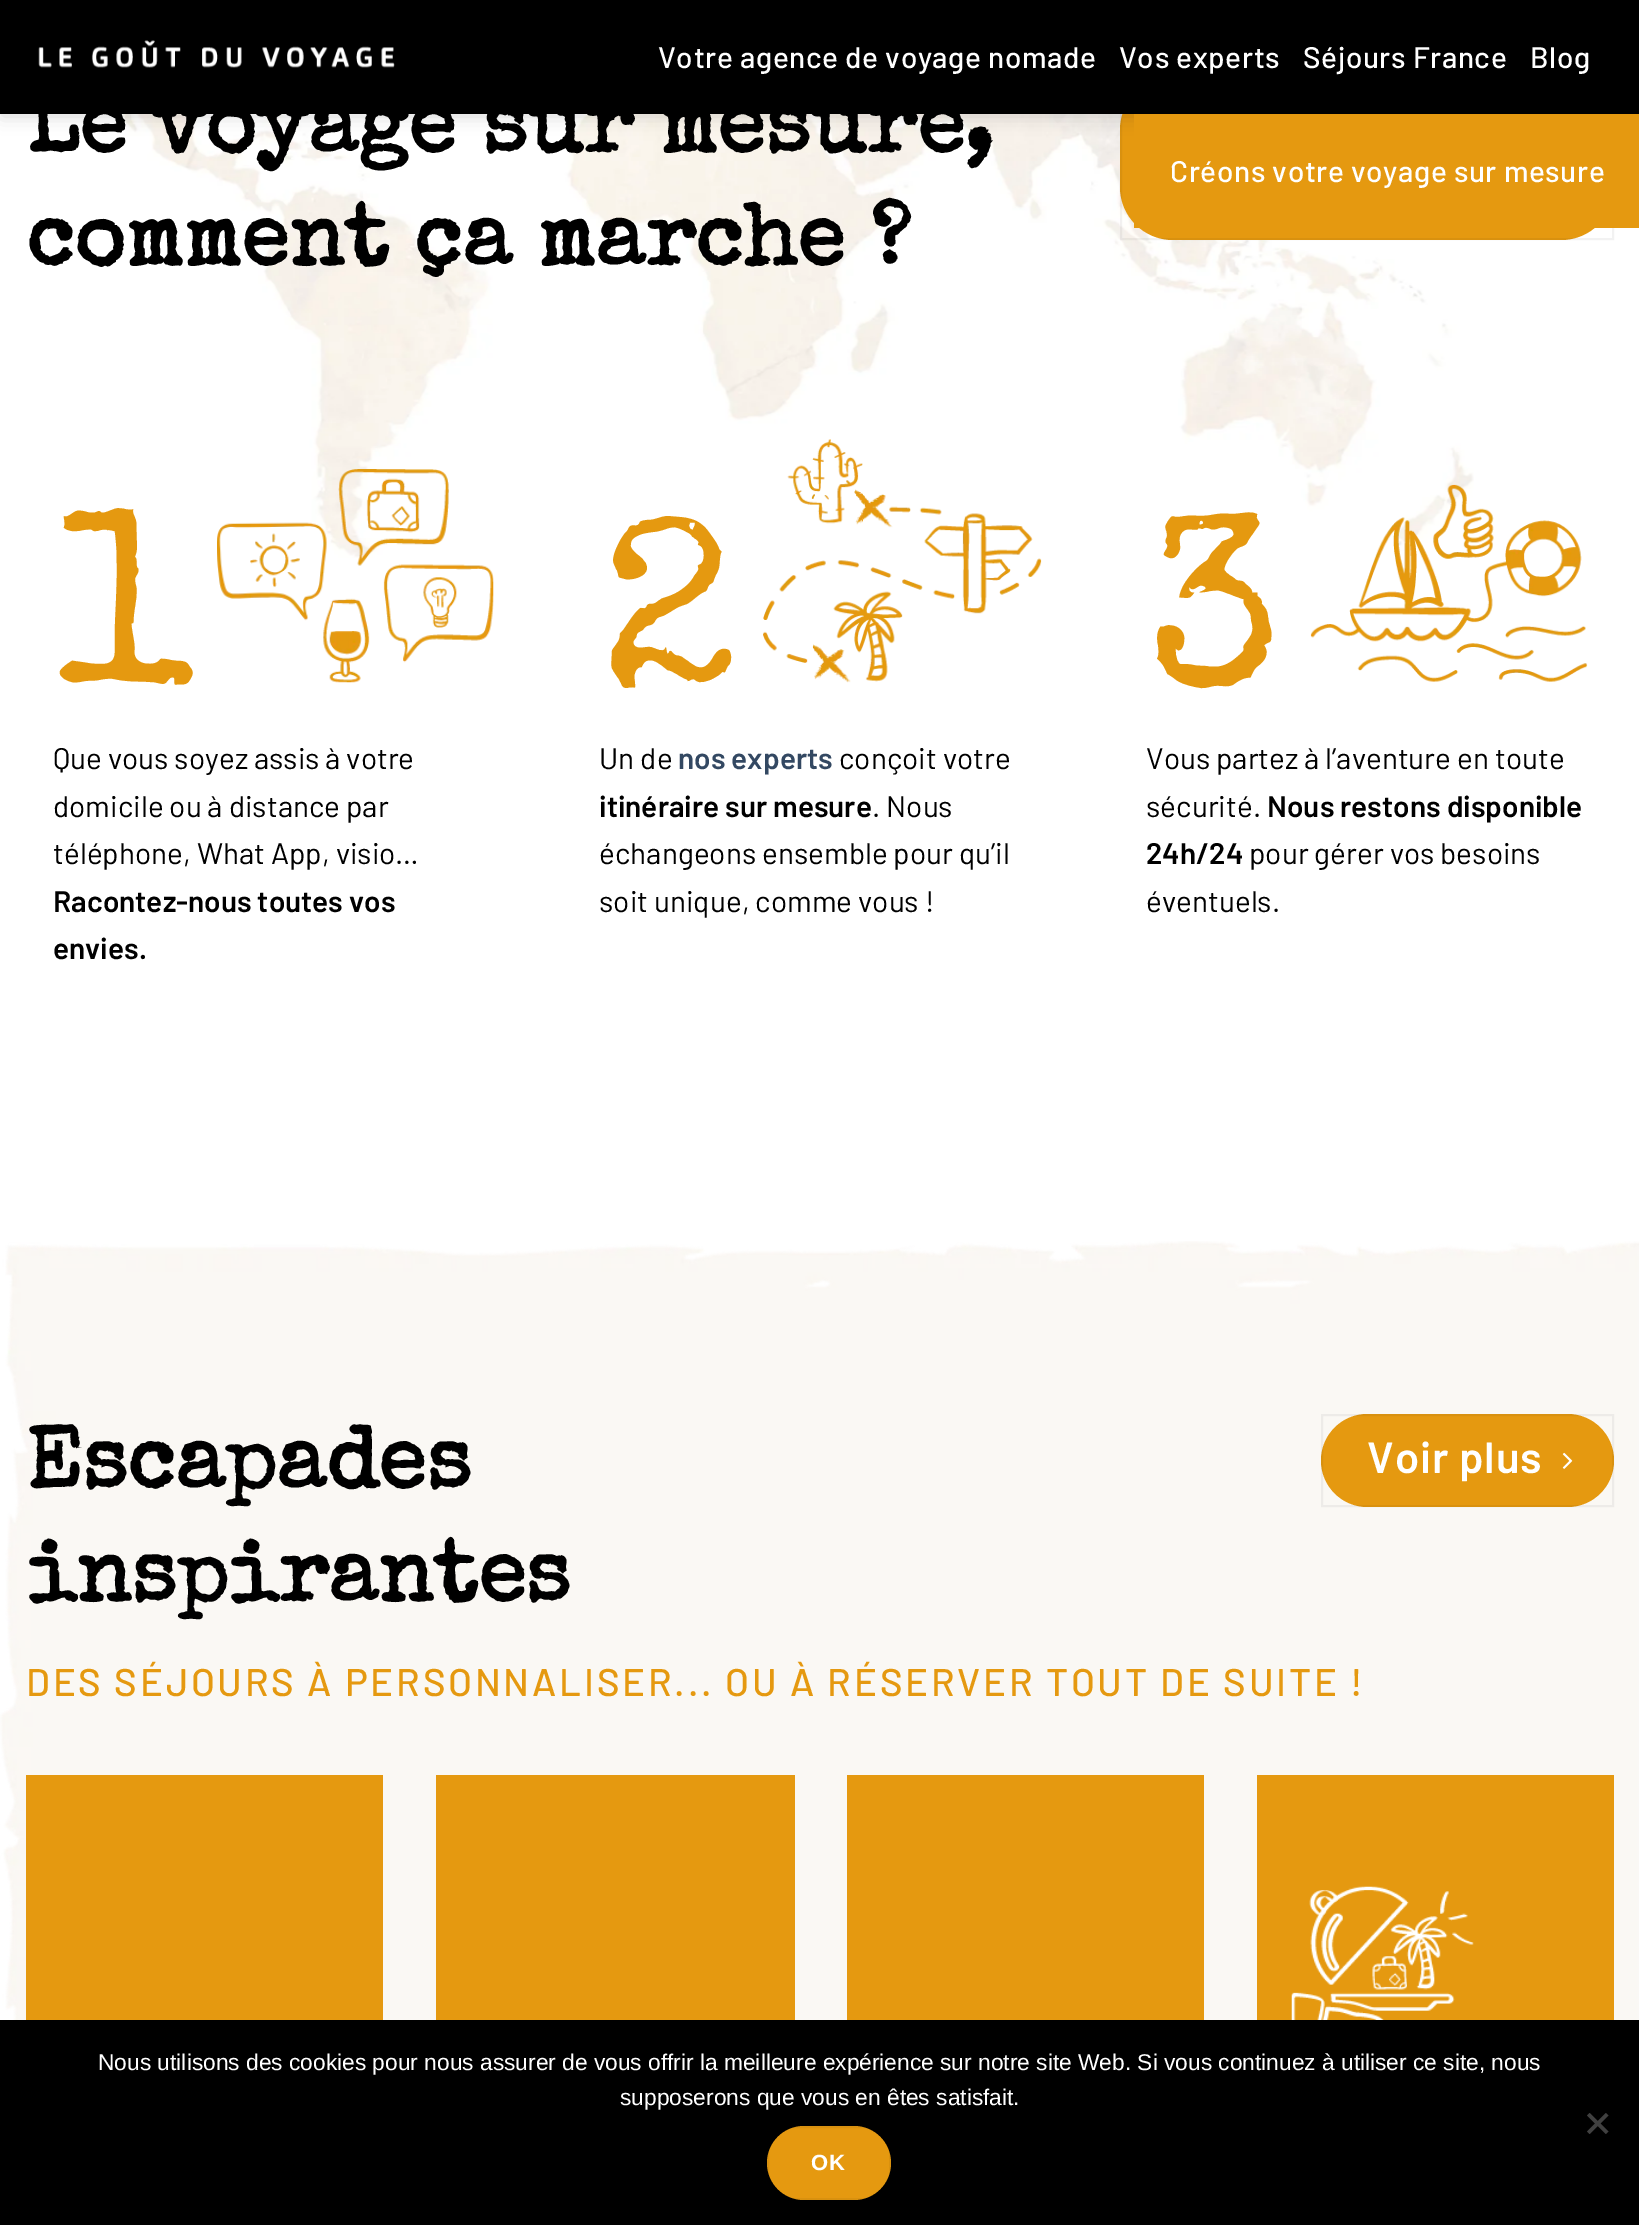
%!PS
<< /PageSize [1639 2225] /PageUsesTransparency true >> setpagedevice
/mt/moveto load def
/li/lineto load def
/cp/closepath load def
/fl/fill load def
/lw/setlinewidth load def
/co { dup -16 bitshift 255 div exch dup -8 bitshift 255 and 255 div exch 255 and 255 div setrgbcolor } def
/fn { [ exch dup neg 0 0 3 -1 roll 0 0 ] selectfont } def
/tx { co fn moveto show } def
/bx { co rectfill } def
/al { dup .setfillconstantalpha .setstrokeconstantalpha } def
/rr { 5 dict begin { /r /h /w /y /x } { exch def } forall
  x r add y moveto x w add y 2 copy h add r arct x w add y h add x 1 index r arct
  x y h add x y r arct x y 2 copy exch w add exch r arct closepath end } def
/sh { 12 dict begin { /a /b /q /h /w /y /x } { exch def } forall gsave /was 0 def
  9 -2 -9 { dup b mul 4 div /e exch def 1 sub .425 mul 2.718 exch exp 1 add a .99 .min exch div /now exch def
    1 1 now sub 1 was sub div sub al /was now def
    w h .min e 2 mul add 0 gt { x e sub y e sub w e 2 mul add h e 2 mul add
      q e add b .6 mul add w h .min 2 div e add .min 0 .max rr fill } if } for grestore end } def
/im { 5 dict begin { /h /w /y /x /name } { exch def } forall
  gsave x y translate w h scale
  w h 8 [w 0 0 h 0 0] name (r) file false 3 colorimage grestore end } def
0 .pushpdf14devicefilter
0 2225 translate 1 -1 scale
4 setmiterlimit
0 0 1639 2225 16#FFFFFF bx
(media/5.raw) 84 114 1390 444 im
16#E59910 co
1120 77 494 163 53 rr fl
0.05 al
16#000000 co
2 lw
1121 78 492 161 rectstroke
1 al
2 2 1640 114 0 9 .15 sh
0 0 1639 114 16#000000 bx
(media/1.raw) 38 40 357 28 im
1134 114 505 114 16#E59910 bx
(media/2.raw) 217 469 277 214 im
(media/3.raw) 763 439 279 244 im
(media/4.raw) 1310 484 278 198 im
(media/6.raw) 0 1241 1639 779 im
1321 1414 293 93 46.5 rr fl
0.05 al
16#000000 co
1322 1415 291 91 rectstroke
1 al
(media/7.raw) 1562 1452 11 17 im
26 1775 357 245 16#E59910 bx
436 1775 359 245 16#E59910 bx
847 1775 357 245 16#E59910 bx
1257 1775 357 245 16#E59910 bx
(media/8.raw) 1291 1886 183 134 im
0 2020 1639 205 16#000000 bx
16#404040 co
1606 2113 mt 1608.5 2115.5 li 1589.5 2134 li 1587 2131.5 li cp fl
1587 2115.5 mt 1589.5 2113 li 1608.5 2131.5 li 1606 2134 li cp fl
16#E59910 co
767 2126 124 74 37 rr fl
0.05 al
16#000000 co
768 2127 122 72 rectstroke
/Barlow-Medium 29.75 fn
1 al
16#FFFFFF co
658 68 mt .6 0 (Votre agence de voyage nomade) ashow
1119 68 mt .6 0 (Vos experts) ashow
1303 68 mt .6 0 (Séjours France) ashow
1530 68 mt .6 0 (Blog) ashow
1170 182 mt .6 0 (Créons votre voyage sur mesure) ashow
(Le voyage sur mesure,) 26 151 /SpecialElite-Bold 87.5 16#000000 tx
(comment ça marche ?) 26 264 /SpecialElite-Bold 87.5 16#000000 tx
(1) 53 682 /SpecialElite-Regular 245 16#E59910 tx
(Que vous soyez assis à votre) 53 769 /Barlow-Regular 29.75 16#000000 tx
(domicile ou à distance par) 53 817 /Barlow-Regular 29.75 16#000000 tx
(téléphone, What App, visio…) 53 864 /Barlow-Regular 29.75 16#000000 tx
(Racontez-nous toutes vos) 53 912 /Barlow-SemiBold 29.75 16#000000 tx
(envies.) 53 959 /Barlow-SemiBold 29.75 16#000000 tx
(2) 599 682 /SpecialElite-Regular 245 16#E59910 tx
(Un de) 599 769 /Barlow-Regular 29.75 16#000000 tx
(nos experts) 678 769 /Barlow-SemiBold 29.75 16#334862 tx
(conçoit votre) 839 769 /Barlow-Regular 29.75 16#000000 tx
(itinéraire sur mesure) 599 817 /Barlow-SemiBold 29.75 16#000000 tx
(. Nous) 872 817 /Barlow-Regular 29.75 16#000000 tx
(échangeons ensemble pour qu’il) 599 864 /Barlow-Regular 29.75 16#000000 tx
(soit unique, comme vous !) 599 912 /Barlow-Regular 29.75 16#000000 tx
(3) 1146 682 /SpecialElite-Regular 245 16#E59910 tx
(Vous partez à l’aventure en toute) 1146 769 /Barlow-Regular 29.75 16#000000 tx
(sécurité.) 1146 817 /Barlow-Regular 29.75 16#000000 tx
(Nous restons disponible) 1267 817 /Barlow-SemiBold 29.75 16#000000 tx
(24h/24) 1146 864 /Barlow-SemiBold 29.75 16#000000 tx
(pour gérer vos besoins) 1249 864 /Barlow-Regular 29.75 16#000000 tx
(éventuels.) 1146 912 /Barlow-Regular 29.75 16#000000 tx
(Escapades) 26 1487 /SpecialElite-Bold 87.5 16#000000 tx
(inspirantes) 26 1600 /SpecialElite-Bold 87.5 16#000000 tx
/Barlow-SemiBold 43.75 fn
16#FFFFFF co
1367 1473 mt .9 0 (Voir plus) ashow
/Barlow-Medium 38.5 fn
16#E59910 co
26 1696 mt 2.8 0 (DES SÉJOURS À PERSONNALISER... OU À RÉSERVER TOUT DE SUITE !) ashow
(Nous utilisons des cookies pour nous assurer de vous offrir la meilleure expérience sur notre site Web. Si vous continuez à utiliser ce site, nous) 98 2070 /LiberationSans-Regular 22.75 16#FFFFFF tx
(supposerons que vous en êtes satisfait.) 620 2105 /LiberationSans-Regular 22.75 16#FFFFFF tx
/LiberationSans-Bold 22 fn
811 2170 mt 1 0 (OK) ashow
.poppdf14devicefilter showpage
